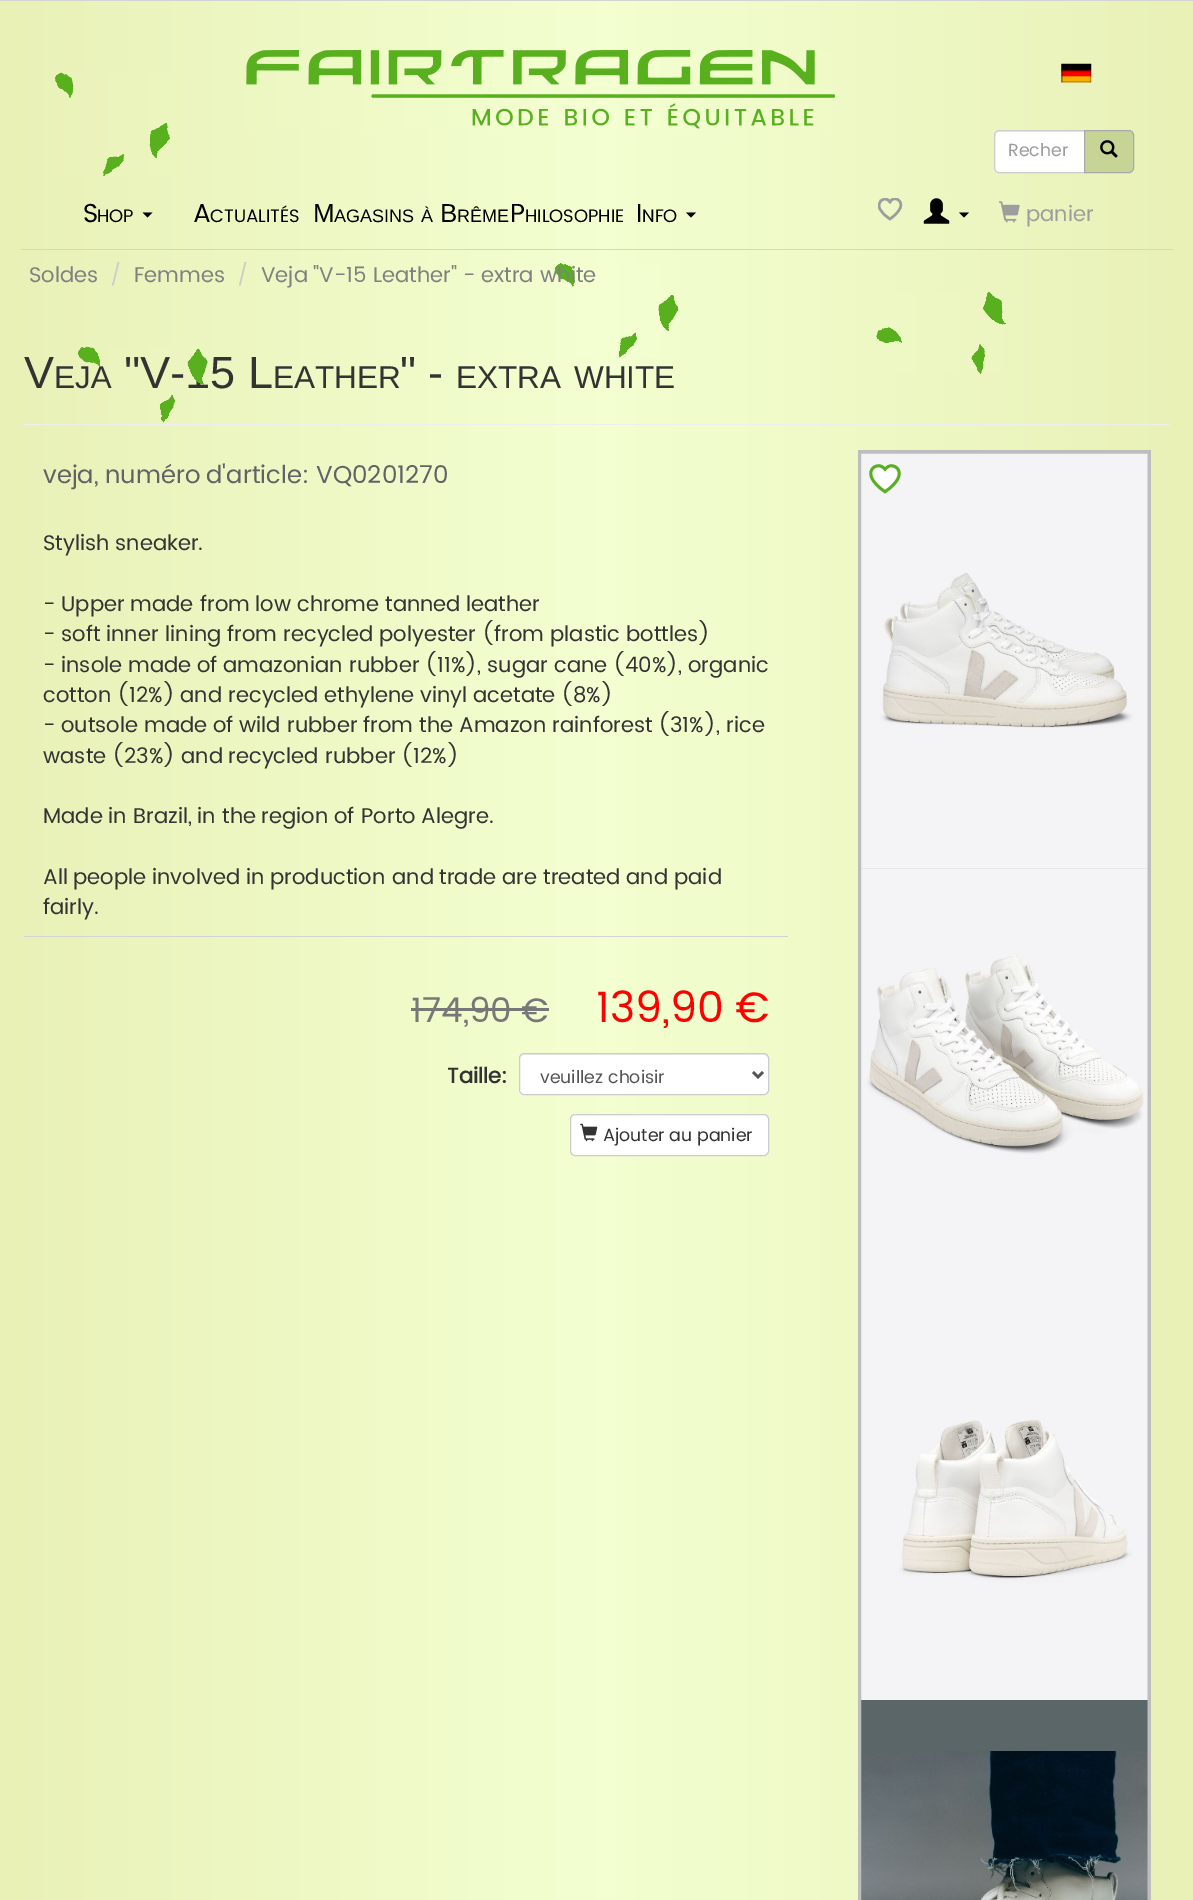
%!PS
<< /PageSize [1193 1900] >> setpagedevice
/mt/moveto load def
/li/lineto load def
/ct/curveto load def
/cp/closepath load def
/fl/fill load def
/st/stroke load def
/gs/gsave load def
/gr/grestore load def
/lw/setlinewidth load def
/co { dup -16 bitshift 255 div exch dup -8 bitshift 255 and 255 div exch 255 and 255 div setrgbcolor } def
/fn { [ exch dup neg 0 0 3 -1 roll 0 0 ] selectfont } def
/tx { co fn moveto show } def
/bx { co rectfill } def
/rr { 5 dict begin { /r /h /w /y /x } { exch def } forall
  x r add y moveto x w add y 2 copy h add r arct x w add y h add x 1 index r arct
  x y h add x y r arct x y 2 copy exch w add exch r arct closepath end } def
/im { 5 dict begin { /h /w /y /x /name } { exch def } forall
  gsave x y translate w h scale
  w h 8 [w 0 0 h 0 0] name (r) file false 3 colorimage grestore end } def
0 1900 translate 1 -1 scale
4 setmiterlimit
0 0 1193 1900 16#FFFFFF bx
gs 0 1 mt 1193 1 li 1193 1900 li 0 1900 li cp clip newpath
<< /ShadingType 2 /ColorSpace /DeviceRGB /Coords [0 1571 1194 1571] /Extend [true true] /Function << /FunctionType 3 /Domain [0 1] /Functions [<< /FunctionType 2 /Domain [0 1] /C0 [.914 .945 .718] /C1 [.953 1 .82] /N 1 >> << /FunctionType 2 /Domain [0 1] /C0 [.953 1 .82] /C1 [.914 .945 .718] /N 1 >>] /Bounds [.5] /Encode [0 1 0 1] >> >> shfill gr
(media/1.raw) 55 72 115 104 im
(media/2.raw) 246 50 590 79 im
(media/3.raw) 1061 63 31 20 im
999 130 mt 1085 130 li 1085 173 li 999 173 li 996 173 994 171 994 168 ct 994 135 li 994 132 996 130 999 130 ct cp fl
16#ECECEC co
999 132 mt 1084 132 li 1084 131 li 999 131 li 997 131 995 133 995 135 ct 995 136 li 995 134 997 132 999 132 ct cp fl
16#CCCCCC co
999 130.5 mt 1084.5 130.5 li 1084.5 172.5 li 999 172.5 li 996.5 172.5 994.5 170.5 994.5 168 ct 994.5 135 li 994.5 132.5 996.5 130.5 999 130.5 ct cp st
16#C6D595 co
1084.5 130.5 mt 1129 130.5 li 1131.5 130.5 1133.5 132.5 1133.5 135 ct 1133.5 168 li 1133.5 170.5 1131.5 172.5 1129 172.5 ct 1084.5 172.5 li cp gs fl gr
16#A9A9A9 co
st
(media/4.raw) 1100 140 18 18 im
0 0 1193 1 16#D3D3D3 bx
16#000000 co
142.5 212.5 mt 152.5 212.5 li 147.5 217.5 li cp fl
686 212.5 mt 696 212.5 li 691 217.5 li cp fl
gs
878 198 25 25 rectclip
16#9D9D9D co
2.5 lw
890 202 mt 888 200 li 882.5 196.5 877.5 202.5 879.5 208 ct 881.5 213 886 216.5 890 219 ct 894 216 899 212 900.5 207 ct 902.5 201 895.5 196 891 200.5 ct cp st
gr
(media/5.raw) 923 198 27 26 im
959 212.5 mt 969 212.5 li 964 217.5 li cp fl
(media/6.raw) 999 201 21 22 im
21 249 1152 1 16#D3D3D3 bx
(media/7.raw) 555 263 124 95 im
(media/8.raw) 876 292 130 82 im
24 424 1146 1 16#EEEEEE bx
24 936 764 1 16#D3D3D3 bx
858 450 293 1450 16#BDBDBD bx
(media/10.raw) 861 453 287 416 im
(media/11.raw) 869 464 32 30 im
(media/12.raw) 861 868 287 417 im
(media/13.raw) 861 1285 287 415 im
(media/14.raw) 861 1700 287 200 im
411 1008 138 3 16#777777 bx
16#FFFFFF co
519 1053 250 42 5 rr fl
16#ECECEC co
524 1055 mt 764 1055 li 766 1055 768 1057 768 1059 ct 768 1058 li 768 1056 766 1054 764 1054 ct 524 1054 li 522 1054 520 1056 520 1058 ct 520 1059 li 520 1057 522 1055 524 1055 ct cp fl
16#CCCCCC co
519.5 1053.5 249 41 4.5 rr st
16#555555 co
2.5 lw
753 1072 mt 758 1077 li 763 1072 li st
16#FFFFFF co
570.5 1114.5 198 41 4.5 rr gs fl gr
16#CCCCCC co
1 lw
st
(media/15.raw) 580 1123 18 19 im
(Recher) 1008 156 /Poppins-Regular 17.5 16#9D9D9D tx
(S) 83 222 /Poppins-Regular 26 16#000000 tx
(HOP) 97 222 /Poppins-Regular 18 16#000000 tx
(A) 193 222 /Poppins-Regular 26 16#000000 tx
(CTUALITÉS) 210 222 /Poppins-Regular 18 16#000000 tx
(M) 313 222 /LiberationSans-Regular 26 16#000000 tx
(AGASINS) 334 222 /LiberationSans-Regular 18 16#000000 tx
(À) 421 222 /LiberationSans-Regular 18 16#000000 tx
(B) 440 222 /LiberationSans-Regular 26 16#000000 tx
(RÊME) 457 222 /LiberationSans-Regular 18 16#000000 tx
(P) 510 222 /Poppins-Regular 26 16#000000 tx
(HILOSOPHIE) 525 222 /Poppins-Regular 18 16#000000 tx
(I) 636 222 /Poppins-Regular 26 16#000000 tx
(NFO) 642 222 /Poppins-Regular 18 16#000000 tx
(panier) 1026 221 /Poppins-Regular 21.25 16#9D9D9D tx
(Soldes) 29 282 /Poppins-Regular 21.25 16#808080 tx
(/) 110 282 /Poppins-Regular 21.25 16#CCCCCC tx
(Femmes) 134 282 /Poppins-Regular 21.25 16#808080 tx
(/) 237 282 /Poppins-Regular 21.25 16#CCCCCC tx
(Veja) 261 282 /Poppins-Regular 21.25 16#808080 tx
("V-15) 313 282 /Poppins-Regular 21.25 16#808080 tx
(Leather") 373 282 /Poppins-Regular 21.25 16#808080 tx
(-) 463 282 /Poppins-Regular 21.25 16#808080 tx
(extra) 481 282 /Poppins-Regular 21.25 16#808080 tx
(white) 540 282 /Poppins-Regular 21.25 16#808080 tx
(V) 24 388 /LiberationSans-Regular 45 16#333333 tx
(EJA) 54 388 /LiberationSans-Regular 31.5 16#333333 tx
("V-15 L) 124 388 /LiberationSans-Regular 45 16#333333 tx
(media/9.raw) 78 346 130 77 im
(EATHER) 273 388 /LiberationSans-Regular 31.5 16#333333 tx
(" -) 400 388 /LiberationSans-Regular 45 16#333333 tx
(EXTRA) 456 388 /LiberationSans-Regular 31.5 16#333333 tx
(WHITE) 574 388 /LiberationSans-Regular 31.5 16#333333 tx
(veja,) 43 483 /Poppins-Regular 24.5 16#616166 tx
(numéro) 105 483 /Poppins-Regular 24.5 16#616166 tx
(d'article:) 206 483 /Poppins-Regular 24.5 16#616166 tx
(VQ0201270) 316 483 /Poppins-Regular 24.5 16#616166 tx
(Stylish) 43 550 /Poppins-Regular 21.25 16#333333 tx
(sneaker.) 115 550 /Poppins-Regular 21.25 16#333333 tx
(-) 43 611 /Poppins-Regular 21.25 16#333333 tx
(Upper) 61 611 /Poppins-Regular 21.25 16#333333 tx
(made) 130 611 /Poppins-Regular 21.25 16#333333 tx
(from) 200 611 /Poppins-Regular 21.25 16#333333 tx
(low) 255 611 /Poppins-Regular 21.25 16#333333 tx
(chrome) 297 611 /Poppins-Regular 21.25 16#333333 tx
(tanned) 385 611 /Poppins-Regular 21.25 16#333333 tx
(leather) 466 611 /Poppins-Regular 21.25 16#333333 tx
(-) 43 641 /Poppins-Regular 21.25 16#333333 tx
(soft) 61 641 /Poppins-Regular 21.25 16#333333 tx
(inner) 106 641 /Poppins-Regular 21.25 16#333333 tx
(lining) 165 641 /Poppins-Regular 21.25 16#333333 tx
(from) 227 641 /Poppins-Regular 21.25 16#333333 tx
(recycled) 283 641 /Poppins-Regular 21.25 16#333333 tx
(polyester) 379 641 /Poppins-Regular 21.25 16#333333 tx
(\(from) 482 641 /Poppins-Regular 21.25 16#333333 tx
(plastic) 550 641 /Poppins-Regular 21.25 16#333333 tx
(bottles\)) 626 641 /Poppins-Regular 21.25 16#333333 tx
(-) 43 672 /Poppins-Regular 21.25 16#333333 tx
(insole) 61 672 /Poppins-Regular 21.25 16#333333 tx
(made) 128 672 /Poppins-Regular 21.25 16#333333 tx
(of) 197 672 /Poppins-Regular 21.25 16#333333 tx
(amazonian) 223 672 /Poppins-Regular 21.25 16#333333 tx
(rubber) 349 672 /Poppins-Regular 21.25 16#333333 tx
(\(11%\),) 425 672 /Poppins-Regular 21.25 16#333333 tx
(sugar) 487 672 /Poppins-Regular 21.25 16#333333 tx
(cane) 554 672 /Poppins-Regular 21.25 16#333333 tx
(\(40%\),) 613 672 /Poppins-Regular 21.25 16#333333 tx
(organic) 688 672 /Poppins-Regular 21.25 16#333333 tx
(cotton) 43 702 /Poppins-Regular 21.25 16#333333 tx
(\(12%\)) 117 702 /Poppins-Regular 21.25 16#333333 tx
(and) 180 702 /Poppins-Regular 21.25 16#333333 tx
(recycled) 228 702 /Poppins-Regular 21.25 16#333333 tx
(ethylene) 324 702 /Poppins-Regular 21.25 16#333333 tx
(vinyl) 420 702 /Poppins-Regular 21.25 16#333333 tx
(acetate) 473 702 /Poppins-Regular 21.25 16#333333 tx
(\(8%\)) 561 702 /Poppins-Regular 21.25 16#333333 tx
(-) 43 732 /Poppins-Regular 21.25 16#333333 tx
(outsole) 61 732 /Poppins-Regular 21.25 16#333333 tx
(made) 144 732 /Poppins-Regular 21.25 16#333333 tx
(of) 213 732 /Poppins-Regular 21.25 16#333333 tx
(wild) 239 732 /Poppins-Regular 21.25 16#333333 tx
(rubber) 287 732 /Poppins-Regular 21.25 16#333333 tx
(from) 363 732 /Poppins-Regular 21.25 16#333333 tx
(the) 419 732 /Poppins-Regular 21.25 16#333333 tx
(Amazon) 459 732 /Poppins-Regular 21.25 16#333333 tx
(rainforest) 552 732 /Poppins-Regular 21.25 16#333333 tx
(\(31%\),) 658 732 /Poppins-Regular 21.25 16#333333 tx
(rice) 726 732 /Poppins-Regular 21.25 16#333333 tx
(waste) 43 763 /Poppins-Regular 21.25 16#333333 tx
(\(23%\)) 112 763 /Poppins-Regular 21.25 16#333333 tx
(and) 181 763 /Poppins-Regular 21.25 16#333333 tx
(recycled) 228 763 /Poppins-Regular 21.25 16#333333 tx
(rubber) 325 763 /Poppins-Regular 21.25 16#333333 tx
(\(12%\)) 401 763 /Poppins-Regular 21.25 16#333333 tx
(Made) 43 823 /Poppins-Regular 21.25 16#333333 tx
(in) 108 823 /Poppins-Regular 21.25 16#333333 tx
(Brazil,) 133 823 /Poppins-Regular 21.25 16#333333 tx
(in) 197 823 /Poppins-Regular 21.25 16#333333 tx
(the) 222 823 /Poppins-Regular 21.25 16#333333 tx
(region) 261 823 /Poppins-Regular 21.25 16#333333 tx
(of) 334 823 /Poppins-Regular 21.25 16#333333 tx
(Porto) 361 823 /Poppins-Regular 21.25 16#333333 tx
(Alegre.) 421 823 /Poppins-Regular 21.25 16#333333 tx
(All) 43 884 /Poppins-Regular 21.25 16#333333 tx
(people) 73 884 /Poppins-Regular 21.25 16#333333 tx
(involved) 152 884 /Poppins-Regular 21.25 16#333333 tx
(in) 246 884 /Poppins-Regular 21.25 16#333333 tx
(production) 270 884 /Poppins-Regular 21.25 16#333333 tx
(and) 392 884 /Poppins-Regular 21.25 16#333333 tx
(trade) 439 884 /Poppins-Regular 21.25 16#333333 tx
(are) 502 884 /Poppins-Regular 21.25 16#333333 tx
(treated) 543 884 /Poppins-Regular 21.25 16#333333 tx
(and) 626 884 /Poppins-Regular 21.25 16#333333 tx
(paid) 674 884 /Poppins-Regular 21.25 16#333333 tx
(fairly.) 43 914 /Poppins-Regular 21.25 16#333333 tx
(174,90) 411 1022 /Poppins-Regular 34 16#777777 tx
(€) 521 1022 /Poppins-Regular 34 16#777777 tx
(139,90) 596 1022 /Poppins-Regular 42.5 16#FF0000 tx
(€) 735 1022 /Poppins-Regular 42.5 16#FF0000 tx
(Taille:) 447 1083 /Poppins-Bold 21.25 16#333333 tx
(veuillez) 540 1083 /Poppins-Regular 17.5 16#555555 tx
(choisir) 608 1083 /Poppins-Regular 17.5 16#555555 tx
(Ajouter) 603 1141 /Poppins-Regular 17.5 16#333333 tx
(au) 669 1141 /Poppins-Regular 17.5 16#333333 tx
(panier) 697 1141 /Poppins-Regular 17.5 16#333333 tx
showpage
